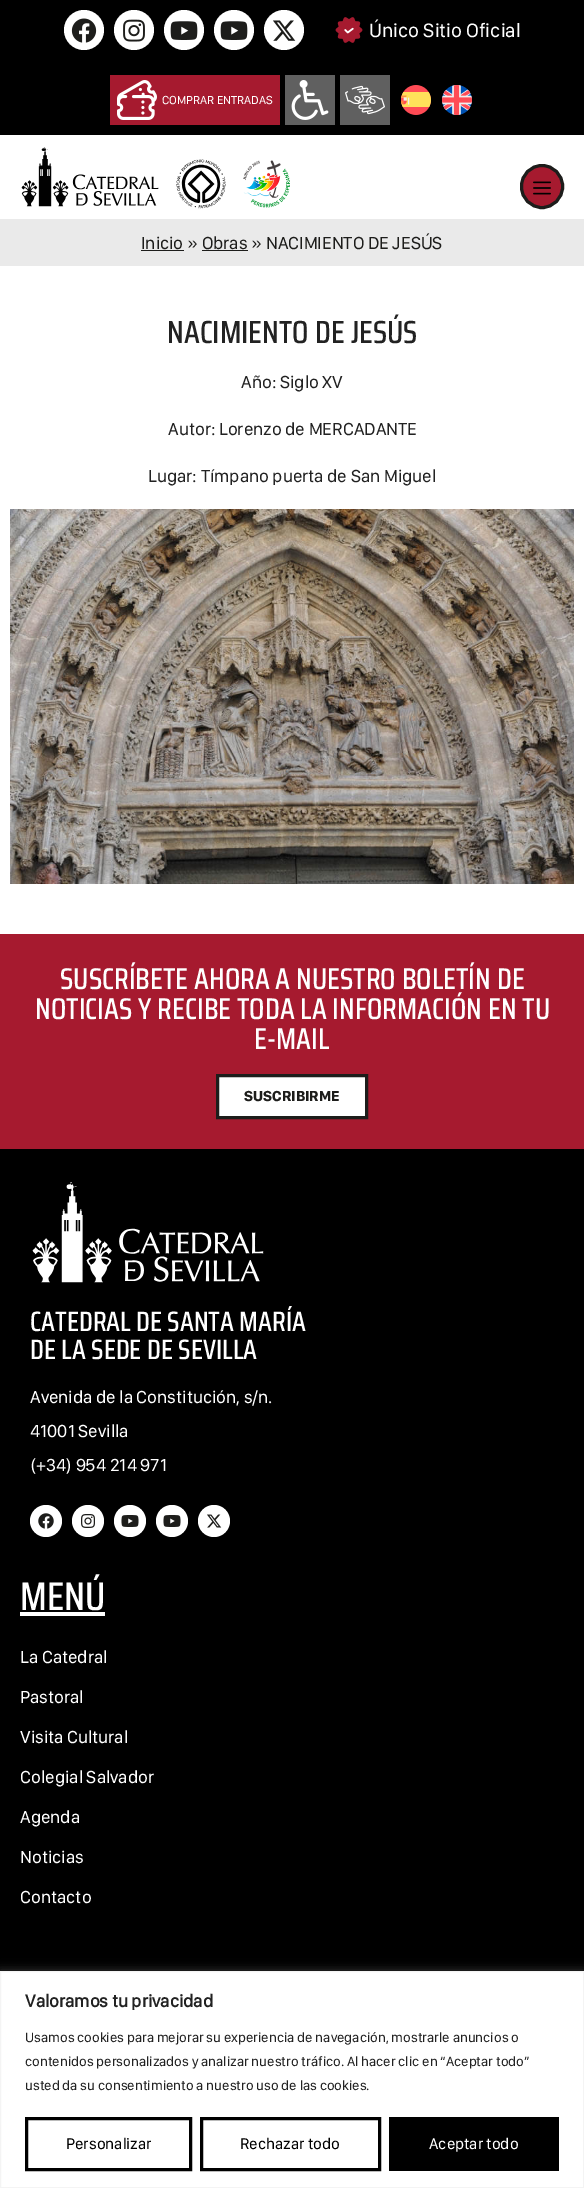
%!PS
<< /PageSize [584 2188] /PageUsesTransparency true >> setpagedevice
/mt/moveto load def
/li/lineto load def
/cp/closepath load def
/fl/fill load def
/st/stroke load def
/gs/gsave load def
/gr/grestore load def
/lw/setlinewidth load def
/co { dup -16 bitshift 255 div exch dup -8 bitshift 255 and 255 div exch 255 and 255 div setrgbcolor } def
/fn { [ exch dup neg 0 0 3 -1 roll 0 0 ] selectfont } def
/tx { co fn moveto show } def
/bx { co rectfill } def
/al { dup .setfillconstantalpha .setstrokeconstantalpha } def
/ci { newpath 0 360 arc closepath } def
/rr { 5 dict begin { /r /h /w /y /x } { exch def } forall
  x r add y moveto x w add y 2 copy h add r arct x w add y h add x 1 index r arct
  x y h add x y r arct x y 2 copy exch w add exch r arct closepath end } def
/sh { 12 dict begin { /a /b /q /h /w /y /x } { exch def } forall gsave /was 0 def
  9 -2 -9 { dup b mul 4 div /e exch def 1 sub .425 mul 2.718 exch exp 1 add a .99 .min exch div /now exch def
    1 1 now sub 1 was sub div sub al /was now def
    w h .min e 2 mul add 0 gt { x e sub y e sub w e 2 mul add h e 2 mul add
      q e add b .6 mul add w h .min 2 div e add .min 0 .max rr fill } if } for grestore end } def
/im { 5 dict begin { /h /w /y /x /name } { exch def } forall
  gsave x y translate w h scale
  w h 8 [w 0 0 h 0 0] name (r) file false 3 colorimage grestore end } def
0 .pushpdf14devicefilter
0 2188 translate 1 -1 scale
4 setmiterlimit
0 0 584 2188 16#FFFFFF bx
0 0 584 135 16#000000 bx
16#FFFFFF co
84 30 20 ci fl
(media/1.raw) 71 18 26 25 im
134 30 20 ci fl
(media/2.raw) 123 19 22 23 im
184 30 20 ci fl
(media/3.raw) 170 21 28 19 im
234 30 20 ci fl
(media/3.raw) 220 21 28 19 im
284 30 20 ci fl
(media/4.raw) 273 20 23 21 im
(media/5.raw) 335 17 28 26 im
110 75 170 50 16#A61A2F bx
(media/6.raw) 117 80 40 40 im
285 75 50 50 16#606060 bx
(media/7.raw) 291 80 38 40 im
340 75 50 50 16#606060 bx
(media/8.raw) 345 85 40 30 im
(media/9.raw) 401 85 30 30 im
(media/10.raw) 442 85 30 30 im
(media/11.raw) 21 147 138 60 im
(media/12.raw) 176 159 50 50 im
(media/13.raw) 243 160 47 48 im
16#A61A2F co
521.5 165.5 41 42 20.5 rr gs fl gr
16#1D1D1B co
3 lw
st
(media/14.raw) 533 181 18 14 im
0 219 584 47 16#EAEAEA bx
141 250 43 1 16#1D1D1B bx
202 250 46 1 16#1D1D1B bx
(media/15.raw) 10 509 564 375 im
0 934 584 215 16#A61A2F bx
16#FFFFFF co
217.5 1075.5 mt 366.5 1075.5 li 366.5 1117.5 li 217.5 1117.5 li cp gs fl gr
16#1D1D1B co
st
0 1149 584 822 16#000000 bx
(media/16.raw) 32 1182 232 101 im
16#FFFFFF co
46 1521 16 ci fl
(media/17.raw) 38 1513 16 16 im
88 1521 16 ci fl
(media/18.raw) 81 1514 14 14 im
130 1521 16 ci fl
(media/19.raw) 121 1515 18 12 im
172 1521 16 ci fl
(media/19.raw) 163 1515 18 12 im
214 1521 16 ci fl
(media/20.raw) 207 1514 15 14 im
20 1612 85 4 16#FFFFFF bx
16#ACABAB co
0 1970 584 217 0 5 .3 sh
16#FFFFFF co
.5 1971.5 mt 583.5 1971.5 li 583.5 2187.5 li .5 2187.5 li cp gs fl gr
16#F4F4F4 co
1 lw
st
16#000000 co
3 lw
26.5 2118.5 164 51 rectstroke
201.5 2118.5 178 51 rectstroke
389 2117 170 54 16#000000 bx
(Único Sitio Oficial) 369 37 /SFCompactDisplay-Regular 20 16#FFFFFF tx
(COMPRAR ENTRADAS) 162 104 /SFCompactDisplay-Regular 12 16#FFFFFF tx
(Inicio » Obras » NACIMIENTO DE JESÚS) 141 249 /SFCompactDisplay-Regular 18 16#1D1D1B tx
(NACIMIENTO DE JESÚS) 167 343 /SairaCondensed-Medium 32 16#222222 tx
(Año: Siglo XV) 241 388 /SFCompactDisplay-Regular 18 16#222222 tx
(Autor: Lorenzo de MERCADANTE) 168 435 /SFCompactDisplay-Regular 18 16#222222 tx
(Lugar: Tímpano puerta de San Miguel) 148 482 /SFCompactDisplay-Regular 18 16#222222 tx
(SUSCRÍBETE AHORA A NUESTRO BOLETÍN DE) 60 989 /SairaCondensed-Medium 30 16#FFFFFF tx
(NOTICIAS Y RECIBE TODA LA INFORMACIÓN EN TU) 35 1019 /SairaCondensed-Medium 30 16#FFFFFF tx
(E-MAIL) 254 1049 /SairaCondensed-Medium 30 16#FFFFFF tx
(SUSCRIBIRME) 244 1101 /SFCompactDisplay-Bold 15 16#1D1D1B tx
(CATEDRAL DE SANTA MARÍA) 30 1331 /SairaCondensed-Medium 28 16#FFFFFF tx
(DE LA SEDE DE SEVILLA) 30 1359 /SairaCondensed-Medium 28 16#FFFFFF tx
(Avenida de la Constitución, s/n.) 30 1403 /SFCompactDisplay-Regular 18 16#FFFFFF tx
(41001 Sevilla) 30 1437 /SFCompactDisplay-Regular 18 16#FFFFFF tx
(\(+34\) 954 214 971) 30 1471 /SFCompactDisplay-Regular 18 16#FFFFFF tx
(MENÚ) 20 1610 /SairaCondensed-Medium 40 16#FFFFFF tx
(La Catedral) 20 1663 /SFCompactDisplay-Regular 18 16#FFFFFF tx
(Pastoral) 20 1703 /SFCompactDisplay-Regular 18 16#FFFFFF tx
(Visita Cultural) 20 1743 /SFCompactDisplay-Regular 18 16#FFFFFF tx
(Colegial Salvador) 20 1783 /SFCompactDisplay-Regular 18 16#FFFFFF tx
(Agenda) 20 1823 /SFCompactDisplay-Regular 18 16#FFFFFF tx
(Noticias) 20 1863 /SFCompactDisplay-Regular 18 16#FFFFFF tx
(Contacto) 20 1903 /SFCompactDisplay-Regular 18 16#FFFFFF tx
(Valoramos tu privacidad) 25 2007 /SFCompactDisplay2-Bold 18 16#222222 tx
(Usamos cookies para mejorar su experiencia de navegación, mostrarle anuncios o) 25 2042 /SFCompactDisplay-Regular 14 16#222222 tx
(contenidos personalizados y analizar nuestro tráfico. Al hacer clic en “Aceptar todo”) 25 2066 /SFCompactDisplay-Regular 14 16#222222 tx
(usted da su consentimiento a nuestro uso de las cookies.) 25 2090 /SFCompactDisplay-Regular 14 16#222222 tx
(Personalizar) 66 2149 /SFCompactDisplay-Regular 16 16#000000 tx
(Rechazar todo) 240 2149 /SFCompactDisplay-Regular 16 16#000000 tx
(Aceptar todo) 429 2149 /SFCompactDisplay-Regular 16 16#FFFFFF tx
.poppdf14devicefilter showpage
